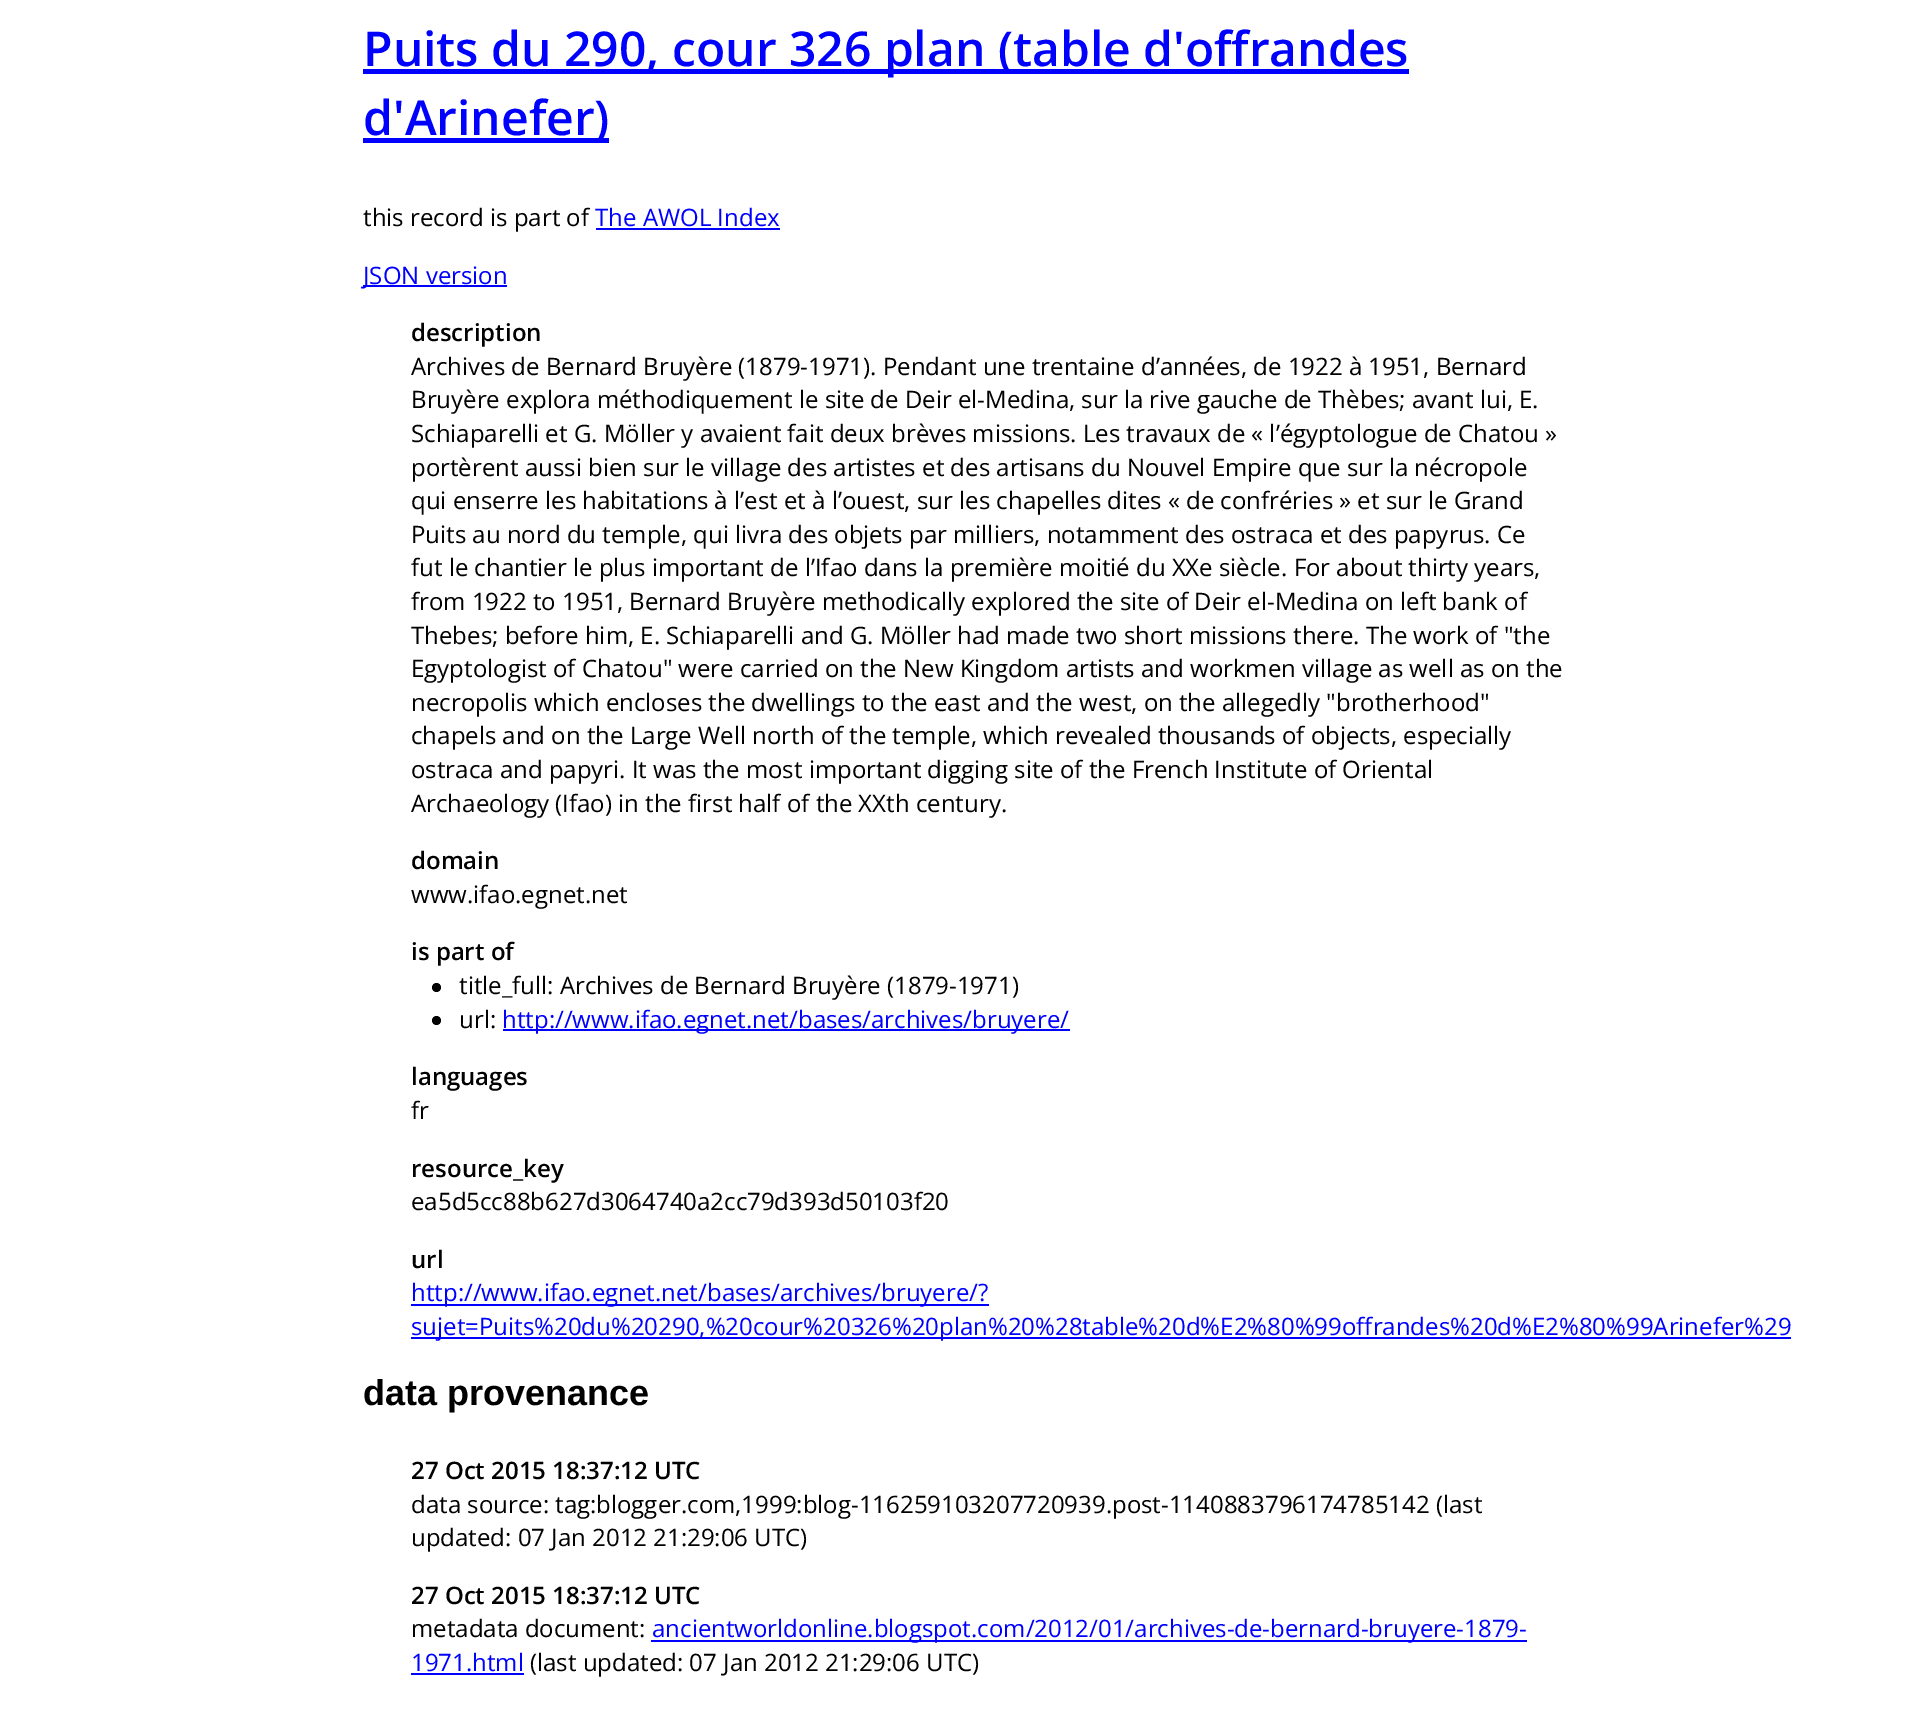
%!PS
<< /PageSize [1925 1736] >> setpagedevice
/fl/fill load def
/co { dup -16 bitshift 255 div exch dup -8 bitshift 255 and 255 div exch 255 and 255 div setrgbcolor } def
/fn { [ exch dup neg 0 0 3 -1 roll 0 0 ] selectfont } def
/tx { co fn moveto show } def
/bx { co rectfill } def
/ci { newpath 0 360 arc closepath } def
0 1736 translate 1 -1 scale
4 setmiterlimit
0 0 1925 1736 16#FFFFFF bx
363 69 1046 5 16#0000FF bx
363 138 246 5 16#0000FF bx
596 228 184 2 16#0000FF bx
363 285 144 2 16#0000FF bx
16#000000 co
436.5 987.5 4.5 ci fl
436.5 1020.5 4.5 ci fl
503 1029 567 2 16#0000FF bx
411 1304 578 2 16#0000FF bx
411 1337 1380 2 16#0000FF bx
651 1640 876 2 16#0000FF bx
411 1673 113 2 16#0000FF bx
(Puits du 290, cour 326 plan \(table d'offrandes) 363 66 /OpenSans-SemiBold 48 16#0000FF tx
(d'Arinefer\)) 363 135 /OpenSans-SemiBold 48 16#0000FF tx
(this record is part of) 363 226 /OpenSans-Regular 24 16#000000 tx
(The AWOL Index) 595 226 /OpenSans-Regular 24 16#0000FF tx
(JSON version) 363 284 /OpenSans-Regular 24 16#0000FF tx
(description) 411 341 /OpenSans-SemiBold 24 16#000000 tx
(Archives de Bernard Bruyère \(1879-1971\). Pendant une trentaine d’années, de 1922 à 1951, Bernard) 411 375 /OpenSans-Regular 24 16#000000 tx
(Bruyère explora méthodiquement le site de Deir el-Medina, sur la rive gauche de Thèbes; avant lui, E.) 411 408 /OpenSans-Regular 24 16#000000 tx
(Schiaparelli et G. Möller y avaient fait deux brèves missions. Les travaux de « l’égyptologue de Chatou ») 411 442 /OpenSans-Regular 24 16#000000 tx
(portèrent aussi bien sur le village des artistes et des artisans du Nouvel Empire que sur la nécropole) 411 476 /OpenSans-Regular 24 16#000000 tx
(qui enserre les habitations à l’est et à l’ouest, sur les chapelles dites « de confréries » et sur le Grand) 411 509 /OpenSans-Regular 24 16#000000 tx
(Puits au nord du temple, qui livra des objets par milliers, notamment des ostraca et des papyrus. Ce) 411 543 /OpenSans-Regular 24 16#000000 tx
(fut le chantier le plus important de l’Ifao dans la première moitié du XXe siècle. For about thirty years,) 411 576 /OpenSans-Regular 24 16#000000 tx
(from 1922 to 1951, Bernard Bruyère methodically explored the site of Deir el-Medina on left bank of) 411 610 /OpenSans-Regular 24 16#000000 tx
(Thebes; before him, E. Schiaparelli and G. Möller had made two short missions there. The work of "the) 411 644 /OpenSans-Regular 24 16#000000 tx
(Egyptologist of Chatou" were carried on the New Kingdom artists and workmen village as well as on the) 411 677 /OpenSans-Regular 24 16#000000 tx
(necropolis which encloses the dwellings to the east and the west, on the allegedly "brotherhood") 411 711 /OpenSans-Regular 24 16#000000 tx
(chapels and on the Large Well north of the temple, which revealed thousands of objects, especially) 411 744 /OpenSans-Regular 24 16#000000 tx
(ostraca and papyri. It was the most important digging site of the French Institute of Oriental) 411 778 /OpenSans-Regular 24 16#000000 tx
(Archaeology \(Ifao\) in the first half of the XXth century.) 411 812 /OpenSans-Regular 24 16#000000 tx
(domain) 411 869 /OpenSans-SemiBold 24 16#000000 tx
(www.ifao.egnet.net) 411 903 /OpenSans-Regular 24 16#000000 tx
(is part of) 411 960 /OpenSans-SemiBold 24 16#000000 tx
(title_full: Archives de Bernard Bruyère \(1879-1971\)) 459 994 /OpenSans-Regular 24 16#000000 tx
(url:) 459 1028 /OpenSans-Regular 24 16#000000 tx
(http://www.ifao.egnet.net/bases/archives/bruyere/) 502 1028 /OpenSans-Regular 24 16#0000FF tx
(languages) 411 1085 /OpenSans-SemiBold 24 16#000000 tx
(fr) 411 1119 /OpenSans-Regular 24 16#000000 tx
(resource_key) 411 1177 /OpenSans-SemiBold 24 16#000000 tx
(ea5d5cc88b627d3064740a2cc79d393d50103f20) 411 1210 /OpenSans-Regular 24 16#000000 tx
(url) 411 1268 /OpenSans-SemiBold 24 16#000000 tx
(http://www.ifao.egnet.net/bases/archives/bruyere/?) 411 1301 /OpenSans-Regular 24 16#0000FF tx
(sujet=Puits%20du%20290,%20cour%20326%20plan%20%28table%20d%E2%80%99offrandes%20d%E2%80%99Arinefer%29) 411 1335 /OpenSans-Regular 24 16#0000FF tx
(data provenance) 363 1405 /LiberationSans-Bold 36 16#000000 tx
(27 Oct 2015 18:37:12 UTC) 411 1479 /OpenSans-SemiBold 24 16#000000 tx
(data source: tag:blogger.com,1999:blog-116259103207720939.post-1140883796174785142 \(last) 411 1513 /OpenSans-Regular 24 16#000000 tx
(updated: 07 Jan 2012 21:29:06 UTC\)) 411 1546 /OpenSans-Regular 24 16#000000 tx
(27 Oct 2015 18:37:12 UTC) 411 1604 /OpenSans-SemiBold 24 16#000000 tx
(metadata document:) 411 1637 /OpenSans-Regular 24 16#000000 tx
(ancientworldonline.blogspot.com/2012/01/archives-de-bernard-bruyere-1879-) 652 1637 /OpenSans-Regular 24 16#0000FF tx
(1971.html) 411 1671 /OpenSans-Regular 24 16#0000FF tx
(\(last updated: 07 Jan 2012 21:29:06 UTC\)) 530 1671 /OpenSans-Regular 24 16#000000 tx
showpage
